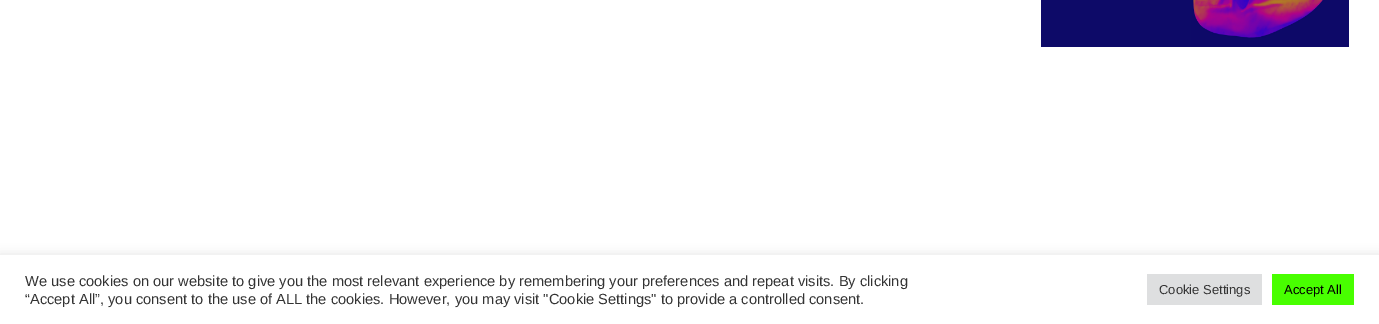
%!PS
<< /PageSize [1379 324] /PageUsesTransparency true >> setpagedevice
/co { dup -16 bitshift 255 div exch dup -8 bitshift 255 and 255 div exch 255 and 255 div setrgbcolor } def
/fn { [ exch dup neg 0 0 3 -1 roll 0 0 ] selectfont } def
/tx { co fn moveto show } def
/bx { co rectfill } def
/al { dup .setfillconstantalpha .setstrokeconstantalpha } def
/rr { 5 dict begin { /r /h /w /y /x } { exch def } forall
  x r add y moveto x w add y 2 copy h add r arct x w add y h add x 1 index r arct
  x y h add x y r arct x y 2 copy exch w add exch r arct closepath end } def
/sh { 12 dict begin { /a /b /q /h /w /y /x } { exch def } forall gsave /was 0 def
  9 -2 -9 { dup b mul 4 div /e exch def 1 sub .425 mul 2.718 exch exp 1 add a .99 .min exch div /now exch def
    1 1 now sub 1 was sub div sub al /was now def
    w h .min e 2 mul add 0 gt { x e sub y e sub w e 2 mul add h e 2 mul add
      q e add b .6 mul add w h .min 2 div e add .min 0 .max rr fill } if } for grestore end } def
/im { 5 dict begin { /h /w /y /x /name } { exch def } forall
  gsave x y translate w h scale
  w h 8 [w 0 0 h 0 0] name (r) file false 3 colorimage grestore end } def
0 .pushpdf14devicefilter
0 324 translate 1 -1 scale
4 setmiterlimit
0 0 1379 324 16#FFFFFF bx
(media/1.raw) 1041 0 308 47 im
16#ACABAB co
0 254 1379 69 0 5 .3 sh
0 255 1379 69 16#FFFFFF bx
1147 274 115 31 16#DEDFE0 bx
1272 274 82 31 16#48FF00 bx
(We use cookies on our website to give you the most relevant experience by remembering your preferences and repeat visits. By clicking) 25 286 /LiberationSans-Regular 14.67 16#333333 tx
(“Accept All”, you consent to the use of ALL the cookies. However, you may visit "Cookie Settings" to provide a controlled consent.) 25 304 /LiberationSans-Regular 14.67 16#333333 tx
(Cookie Settings) 1159 294 /LiberationSans-Regular 13 16#333333 tx
(Accept All) 1284 294 /LiberationSans-Regular 13 16#000000 tx
.poppdf14devicefilter showpage
